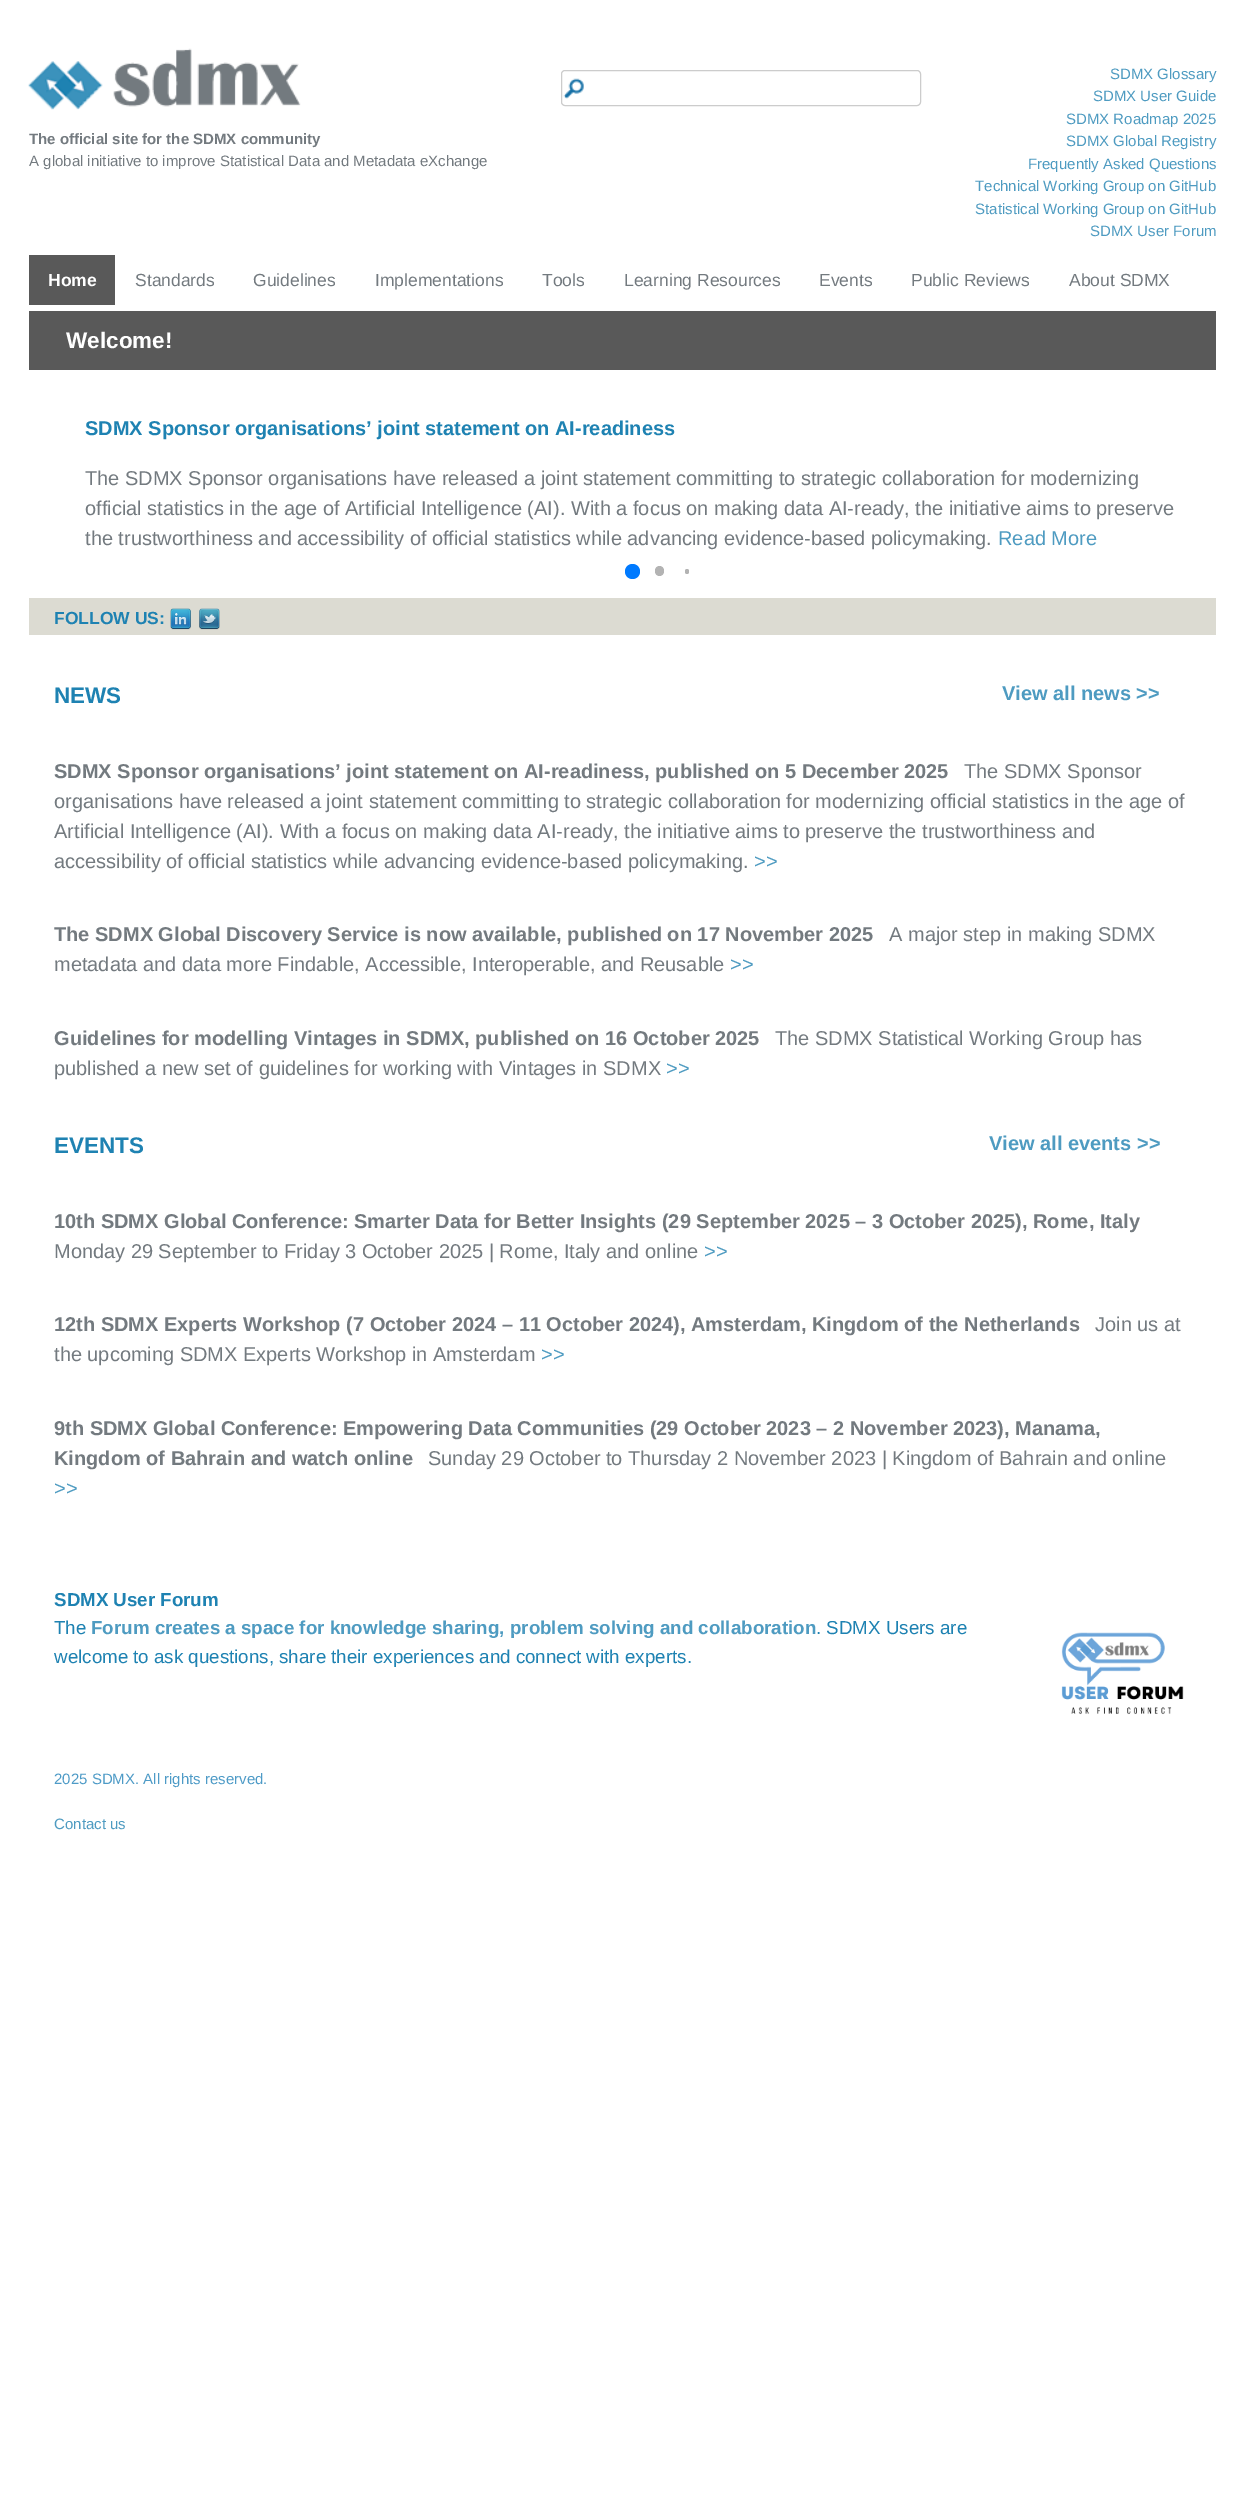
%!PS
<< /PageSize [1244 2519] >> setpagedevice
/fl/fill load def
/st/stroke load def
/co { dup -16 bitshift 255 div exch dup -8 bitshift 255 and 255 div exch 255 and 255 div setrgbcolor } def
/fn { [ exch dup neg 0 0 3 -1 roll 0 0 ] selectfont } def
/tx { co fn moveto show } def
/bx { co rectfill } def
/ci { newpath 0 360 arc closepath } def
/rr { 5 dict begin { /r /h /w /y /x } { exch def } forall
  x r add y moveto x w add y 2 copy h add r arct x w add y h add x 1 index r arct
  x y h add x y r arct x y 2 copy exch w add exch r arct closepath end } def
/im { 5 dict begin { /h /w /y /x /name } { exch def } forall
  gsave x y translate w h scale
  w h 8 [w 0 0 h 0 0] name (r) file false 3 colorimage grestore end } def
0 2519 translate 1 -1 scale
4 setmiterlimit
0 0 1244 2519 16#FFFFFF bx
(media/1.raw) 28 48 273 62 im
(media/2.raw) 563 78 21 21 im
16#CCCCCC co
561.5 70.5 359 35 3.5 rr st
29 255 86 50 16#595959 bx
29 311 1187 59 16#595959 bx
16#007AFF co
632.5 571.5 7.5 ci fl
16#B3B3B3 co
655 566 9 10 4.5 rr fl
685 569 4 5 2 rr fl
29 598 1187 37 16#DCDBD2 bx
(media/3.raw) 170 608 21 22 im
(media/4.raw) 199 608 21 22 im
(media/5.raw) 1061 1632 123 83 im
(The official site for the SDMX community) 29 144 /LiberationSans-Bold 15 16#737A7F tx
(A global initiative to improve Statistical Data and Metadata eXchange) 29 166 /LiberationSans-Regular 15 16#737A7F tx
(SDMX Glossary) 1110 79 /LiberationSans-Regular 15 16#4E9BC1 tx
(SDMX User Guide) 1093 101 /LiberationSans-Regular 15 16#4E9BC1 tx
(SDMX Roadmap 2025) 1066 124 /LiberationSans-Regular 15 16#4E9BC1 tx
(SDMX Global Registry) 1066 146 /LiberationSans-Regular 15 16#4E9BC1 tx
(Frequently Asked Questions) 1028 169 /LiberationSans-Regular 15 16#4E9BC1 tx
(Technical Working Group on GitHub) 975 191 /LiberationSans-Regular 15 16#4E9BC1 tx
(Statistical Working Group on GitHub) 975 214 /LiberationSans-Regular 15 16#4E9BC1 tx
(SDMX User Forum) 1090 236 /LiberationSans-Regular 15 16#4E9BC1 tx
(Home) 48 286 /LiberationSans-Bold 17.5 16#FFFFFF tx
(Standards) 135 286 /LiberationSans-Regular 17.5 16#737A7F tx
(Guidelines) 253 286 /LiberationSans-Regular 17.5 16#737A7F tx
(Implementations) 375 286 /LiberationSans-Regular 17.5 16#737A7F tx
(Tools) 542 286 /LiberationSans-Regular 17.5 16#737A7F tx
(Learning Resources) 624 286 /LiberationSans-Regular 17.5 16#737A7F tx
(Events) 819 286 /LiberationSans-Regular 17.5 16#737A7F tx
(Public Reviews) 911 286 /LiberationSans-Regular 17.5 16#737A7F tx
(About SDMX) 1069 286 /LiberationSans-Regular 17.5 16#737A7F tx
(Welcome!) 66 348 /LiberationSans-Bold 22.5 16#FFFFFF tx
(SDMX Sponsor organisations’ joint statement on AI-readiness) 85 435 /LiberationSans-Bold 20 16#1E82B2 tx
(The SDMX Sponsor organisations have released a joint statement committing to strategic collaboration for modernizing) 85 485 /LiberationSans-Regular 20 16#737A7F tx
(official statistics in the age of Artificial Intelligence \(AI\). With a focus on making data AI-ready, the initiative aims to preserve) 85 515 /LiberationSans-Regular 20 16#737A7F tx
(the trustworthiness and accessibility of official statistics while advancing evidence-based policymaking.) 85 545 /LiberationSans-Regular 20 16#737A7F tx
(Read More) 998 545 /LiberationSans-Regular 20 16#4E9BC1 tx
(FOLLOW US:) 54 624 /LiberationSans-Bold 17.5 16#1E82B2 tx
(NEWS) 54 703 /LiberationSans-Bold 22.5 16#1E82B2 tx
(View all news >>) 1002 700 /LiberationSans-Bold 20 16#4E9BC1 tx
(SDMX Sponsor organisations’ joint statement on AI-readiness, published on 5 December 2025) 54 778 /LiberationSans-Bold 20 16#737A7F tx
(The SDMX Sponsor) 964 778 /LiberationSans-Regular 20 16#737A7F tx
(organisations have released a joint statement committing to strategic collaboration for modernizing official statistics in the age of) 54 808 /LiberationSans-Regular 20 16#737A7F tx
(Artificial Intelligence \(AI\). With a focus on making data AI-ready, the initiative aims to preserve the trustworthiness and) 54 838 /LiberationSans-Regular 20 16#737A7F tx
(accessibility of official statistics while advancing evidence-based policymaking.) 54 868 /LiberationSans-Regular 20 16#737A7F tx
(>>) 754 868 /LiberationSans-Regular 20 16#4E9BC1 tx
(The SDMX Global Discovery Service is now available, published on 17 November 2025) 54 941 /LiberationSans-Bold 20 16#737A7F tx
(A major step in making SDMX) 889 941 /LiberationSans-Regular 20 16#737A7F tx
(metadata and data more Findable, Accessible, Interoperable, and Reusable) 54 971 /LiberationSans-Regular 20 16#737A7F tx
(>>) 730 971 /LiberationSans-Regular 20 16#4E9BC1 tx
(Guidelines for modelling Vintages in SDMX, published on 16 October 2025) 54 1045 /LiberationSans-Bold 20 16#737A7F tx
(The SDMX Statistical Working Group has) 775 1045 /LiberationSans-Regular 20 16#737A7F tx
(published a new set of guidelines for working with Vintages in SDMX) 54 1075 /LiberationSans-Regular 20 16#737A7F tx
(>>) 666 1075 /LiberationSans-Regular 20 16#4E9BC1 tx
(EVENTS) 54 1153 /LiberationSans-Bold 22.5 16#1E82B2 tx
(View all events >>) 989 1150 /LiberationSans-Bold 20 16#4E9BC1 tx
(10th SDMX Global Conference: Smarter Data for Better Insights \(29 September 2025 – 3 October 2025\), Rome, Italy) 54 1228 /LiberationSans-Bold 20 16#737A7F tx
(Monday 29 September to Friday 3 October 2025 | Rome, Italy and online) 54 1258 /LiberationSans-Regular 20 16#737A7F tx
(>>) 704 1258 /LiberationSans-Regular 20 16#4E9BC1 tx
(12th SDMX Experts Workshop \(7 October 2024 – 11 October 2024\), Amsterdam, Kingdom of the Netherlands) 54 1331 /LiberationSans-Bold 20 16#737A7F tx
(Join us at) 1095 1331 /LiberationSans-Regular 20 16#737A7F tx
(the upcoming SDMX Experts Workshop in Amsterdam) 54 1361 /LiberationSans-Regular 20 16#737A7F tx
(>>) 541 1361 /LiberationSans-Regular 20 16#4E9BC1 tx
(9th SDMX Global Conference: Empowering Data Communities \(29 October 2023 – 2 November 2023\), Manama,) 54 1435 /LiberationSans-Bold 20 16#737A7F tx
(Kingdom of Bahrain and watch online) 54 1465 /LiberationSans-Bold 20 16#737A7F tx
(Sunday 29 October to Thursday 2 November 2023 | Kingdom of Bahrain and online) 428 1465 /LiberationSans-Regular 20 16#737A7F tx
(>>) 54 1495 /LiberationSans-Regular 20 16#4E9BC1 tx
(SDMX User Forum) 54 1606 /LiberationSans-Bold 18.75 16#1E82B2 tx
(The) 54 1634 /LiberationSans-Regular 18.75 16#1E82B2 tx
(Forum creates a space for knowledge sharing, problem solving and collaboration) 91 1634 /LiberationSans-Bold 18.75 16#4E9BC1 tx
(. SDMX Users are) 816 1634 /LiberationSans-Regular 18.75 16#1E82B2 tx
(welcome to ask questions, share their experiences and connect with experts.) 54 1663 /LiberationSans-Regular 18.75 16#1E82B2 tx
(2025 SDMX. All rights reserved.) 54 1784 /LiberationSans-Regular 15 16#4E9BC7 tx
(Contact us) 54 1829 /LiberationSans-Regular 15 16#4E9BC1 tx
showpage
